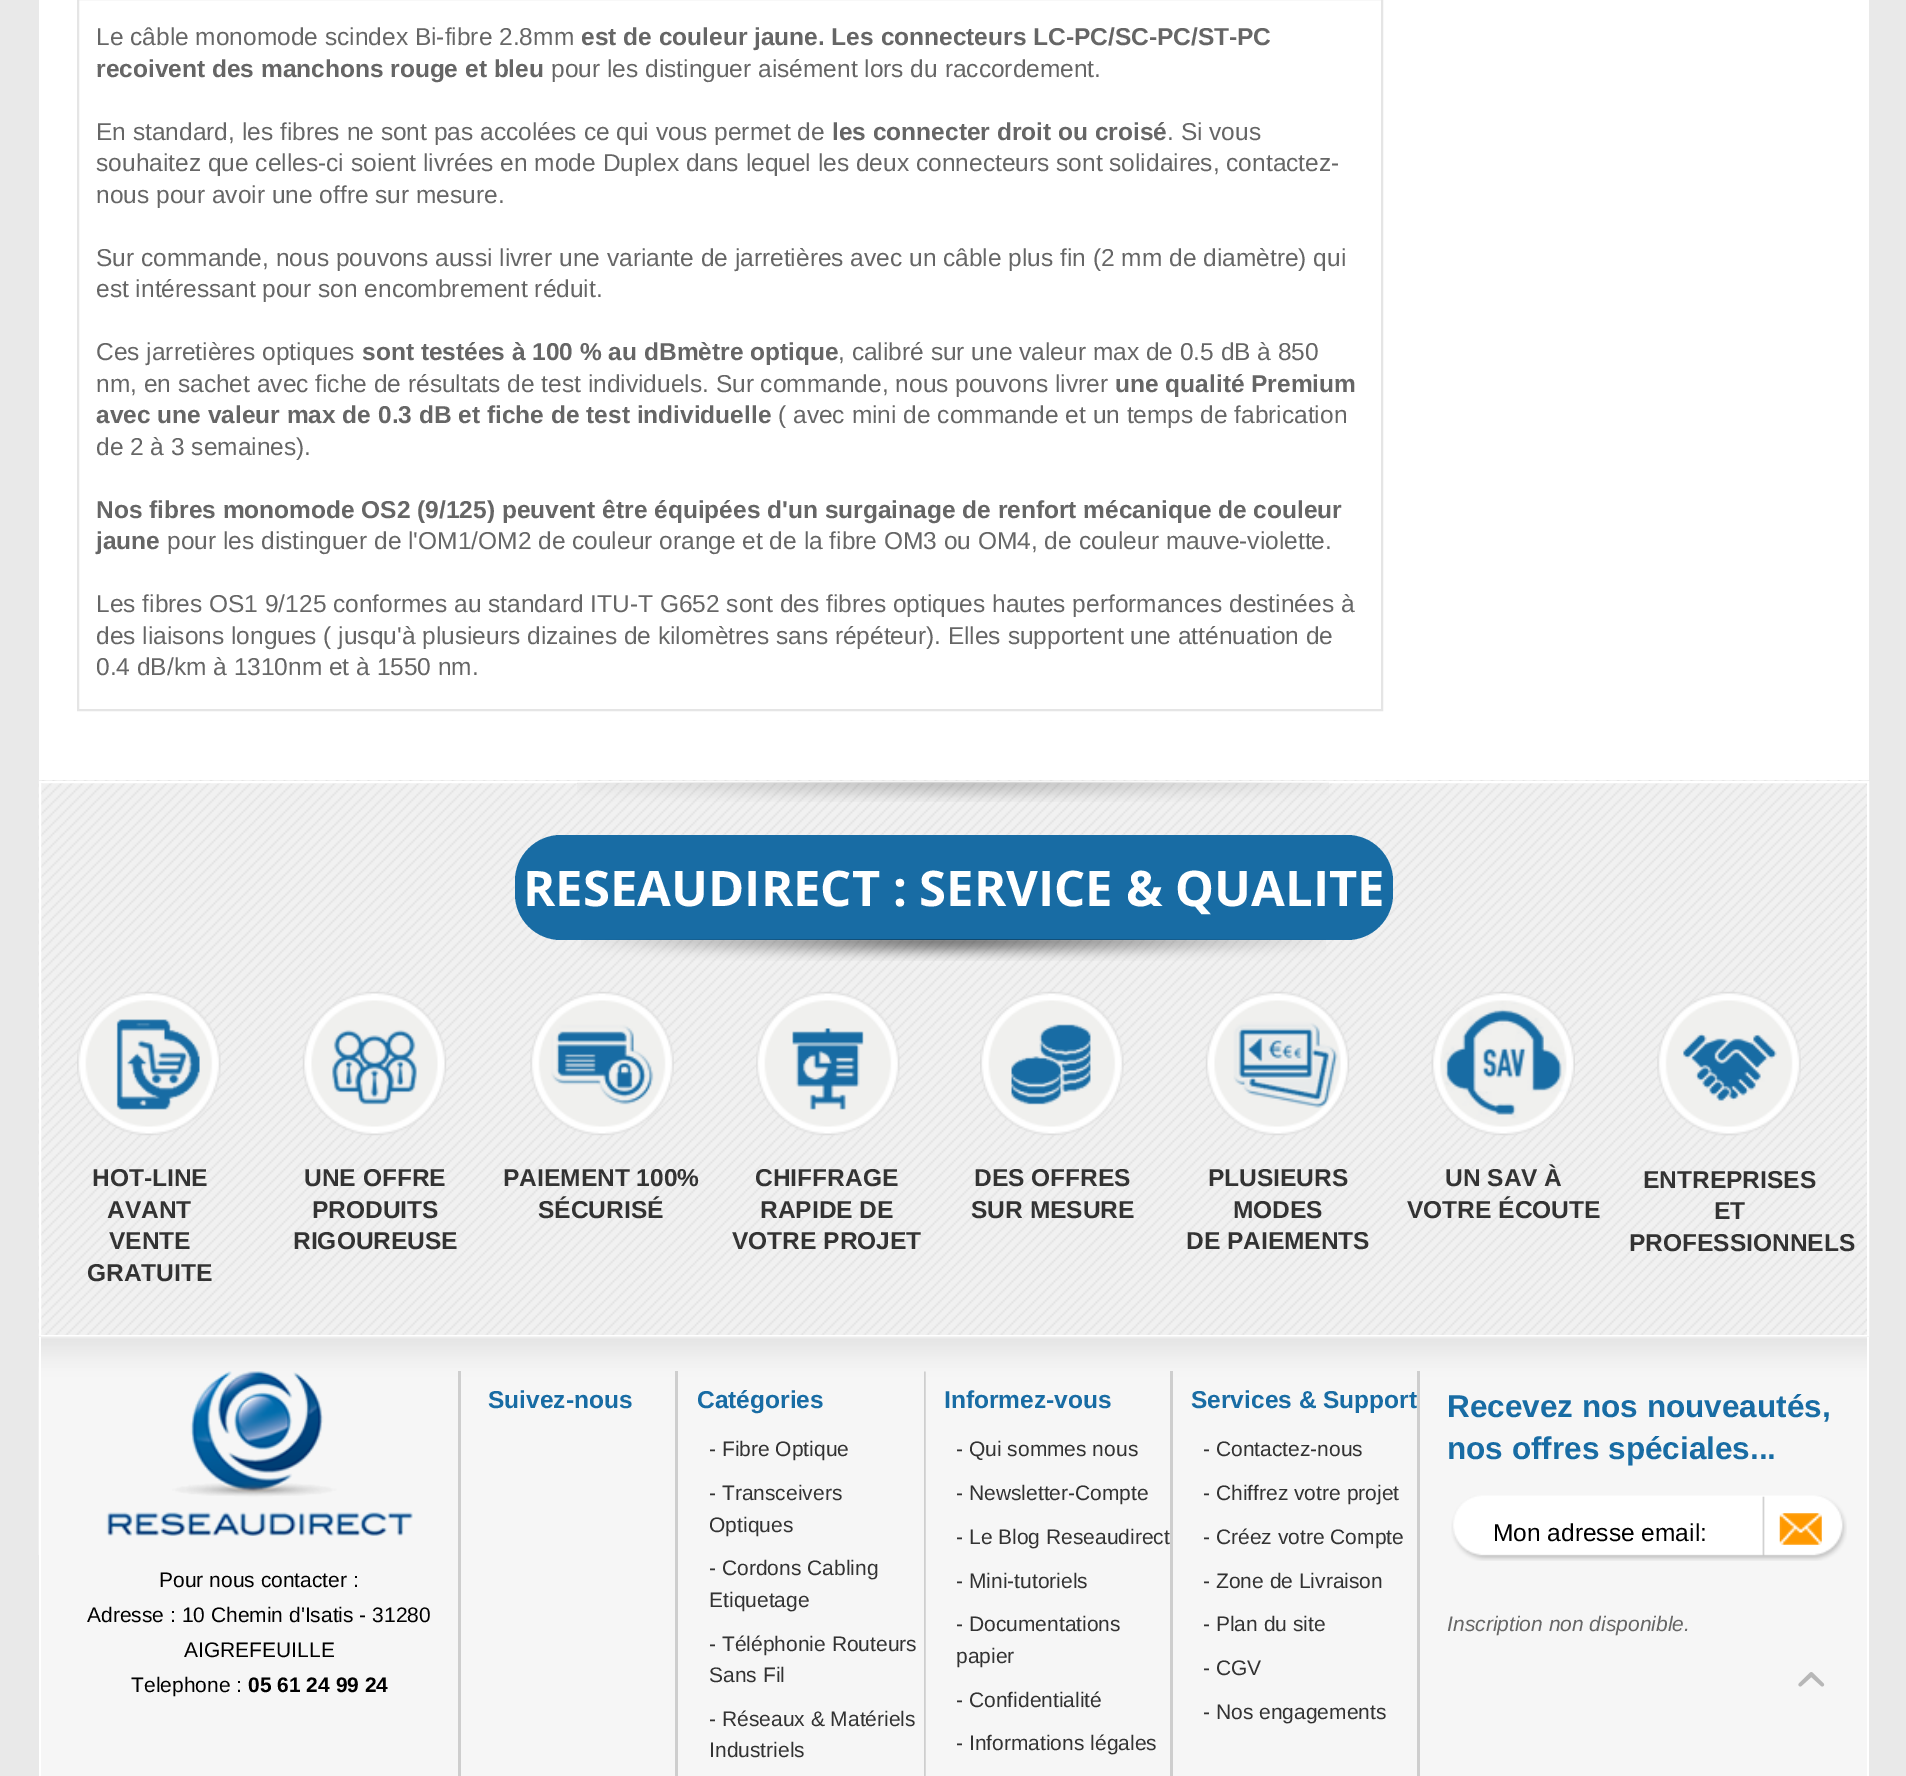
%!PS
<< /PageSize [1906 1776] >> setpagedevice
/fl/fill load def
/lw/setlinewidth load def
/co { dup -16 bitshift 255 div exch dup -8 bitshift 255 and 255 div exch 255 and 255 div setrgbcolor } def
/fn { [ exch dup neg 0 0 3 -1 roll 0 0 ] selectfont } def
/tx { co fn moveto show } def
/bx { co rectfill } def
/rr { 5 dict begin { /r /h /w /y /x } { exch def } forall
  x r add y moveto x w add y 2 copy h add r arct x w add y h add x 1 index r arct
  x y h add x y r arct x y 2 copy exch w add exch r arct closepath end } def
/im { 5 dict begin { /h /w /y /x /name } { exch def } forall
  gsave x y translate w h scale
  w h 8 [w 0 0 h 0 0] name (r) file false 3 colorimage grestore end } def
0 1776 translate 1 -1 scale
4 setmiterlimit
0 0 1906 1776 16#E9E9E9 bx
39 0 1830 780 16#FFFFFF bx
16#E5E5E5 co
2 lw
78 -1 1304 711 rectstroke
(media/1.raw) 38 780 1831 557 im
16#FFFFFF co
40 782 1828 554 rectstroke
(media/2.raw) 577 781 752 21 im
16#186CA4 co
515 835 878 105 46 rr fl
(media/3.raw) 581 939 745 22 im
(media/4.raw) 77 991 144 145 im
(media/5.raw) 302 991 145 145 im
(media/6.raw) 530 991 144 145 im
(media/7.raw) 756 991 144 145 im
(media/8.raw) 980 991 144 145 im
(media/9.raw) 1205 991 145 145 im
(media/10.raw) 1431 991 144 145 im
(media/11.raw) 1657 991 144 145 im
41 1555 1826 221 16#F6F6F6 bx
(media/12.raw) 38 1336 1831 219 im
1867 1337 2 439 16#FFFFFF bx
39 1337 2 439 16#FFFFFF bx
458 1371 3 405 16#CECECE bx
(media/13.raw) 106 1371 307 165 im
675 1371 3 405 16#CECECE bx
(media/14.raw) 924 1371 2 405 im
1170 1371 3 405 16#CECECE bx
1417 1371 3 405 16#CECECE bx
(media/15.raw) 1451 1495 396 66 im
(media/16.raw) 1779 1513 43 32 im
(media/17.raw) 1798 1672 27 15 im
(Le câble monomode scindex Bi-fibre 2.8mm) 96 45 /LiberationSans-Regular 24.5 16#666666 tx
(est de couleur jaune. Les connecteurs LC-PC/SC-PC/ST-PC) 581 45 /LiberationSans-Bold 24.5 16#666666 tx
(recoivent des manchons rouge et bleu) 96 77 /LiberationSans-Bold 24.5 16#666666 tx
(pour les distinguer aisément lors du raccordement.) 551 77 /LiberationSans-Regular 24.5 16#666666 tx
(En standard, les fibres ne sont pas accolées ce qui vous permet de) 96 140 /LiberationSans-Regular 24.5 16#666666 tx
(les connecter droit ou croisé) 832 140 /LiberationSans-Bold 24.5 16#666666 tx
(. Si vous) 1167 140 /LiberationSans-Regular 24.5 16#666666 tx
(souhaitez que celles-ci soient livrées en mode Duplex dans lequel les deux connecteurs sont solidaires, contactez-) 96 171 /LiberationSans-Regular 24.5 16#666666 tx
(nous pour avoir une offre sur mesure.) 96 203 /LiberationSans-Regular 24.5 16#666666 tx
(Sur commande, nous pouvons aussi livrer une variante de jarretières avec un câble plus fin \(2 mm de diamètre\) qui) 96 266 /LiberationSans-Regular 24.5 16#666666 tx
(est intéressant pour son encombrement réduit.) 96 297 /LiberationSans-Regular 24.5 16#666666 tx
(Ces jarretières optiques) 96 360 /LiberationSans-Regular 24.5 16#666666 tx
(sont testées à 100 % au dBmètre optique) 362 360 /LiberationSans-Bold 24.5 16#666666 tx
(, calibré sur une valeur max de 0.5 dB à 850) 838 360 /LiberationSans-Regular 24.5 16#666666 tx
(nm, en sachet avec fiche de résultats de test individuels. Sur commande, nous pouvons livrer) 96 392 /LiberationSans-Regular 24.5 16#666666 tx
(une qualité Premium) 1115 392 /LiberationSans-Bold 24.5 16#666666 tx
(avec une valeur max de 0.3 dB et fiche de test individuelle) 96 423 /LiberationSans-Bold 24.5 16#666666 tx
(\( avec mini de commande et un temps de fabrication) 778 423 /LiberationSans-Regular 24.5 16#666666 tx
(de 2 à 3 semaines\).) 96 455 /LiberationSans-Regular 24.5 16#666666 tx
(Nos fibres monomode OS2 \(9/125\) peuvent être équipées d'un surgainage de renfort mécanique de couleur) 96 518 /LiberationSans-Bold 24.5 16#666666 tx
(jaune) 96 549 /LiberationSans-Bold 24.5 16#666666 tx
(pour les distinguer de l'OM1/OM2 de couleur orange et de la fibre OM3 ou OM4, de couleur mauve-violette.) 167 549 /LiberationSans-Regular 24.5 16#666666 tx
(Les fibres OS1 9/125 conformes au standard ITU-T G652 sont des fibres optiques hautes performances destinées à) 96 612 /LiberationSans-Regular 24.5 16#666666 tx
(des liaisons longues \( jusqu'à plusieurs dizaines de kilomètres sans répéteur\). Elles supportent une atténuation de) 96 644 /LiberationSans-Regular 24.5 16#666666 tx
(0.4 dB/km à 1310nm et à 1550 nm.) 96 675 /LiberationSans-Regular 24.5 16#666666 tx
(RESEAUDIRECT : SERVICE & QUALITE) 523 906 /OpenSans-Bold 49 16#FFFFFF tx
(HOT-LINE) 92 1186 /LiberationSans-Bold 24.5 16#333333 tx
(AVANT) 107 1218 /LiberationSans-Bold 24.5 16#333333 tx
(VENTE) 109 1249 /LiberationSans-Bold 24.5 16#333333 tx
(GRATUITE) 87 1281 /LiberationSans-Bold 24.5 16#333333 tx
(UNE OFFRE) 304 1186 /LiberationSans-Bold 24.5 16#333333 tx
(PRODUITS) 312 1218 /LiberationSans-Bold 24.5 16#333333 tx
(RIGOUREUSE) 293 1249 /LiberationSans-Bold 24.5 16#333333 tx
(PAIEMENT 100%) 503 1186 /LiberationSans-Bold 24.5 16#333333 tx
(SÉCURISÉ) 538 1218 /LiberationSans-Bold 24.5 16#333333 tx
(CHIFFRAGE) 755 1186 /LiberationSans-Bold 24.5 16#333333 tx
(RAPIDE DE) 760 1218 /LiberationSans-Bold 24.5 16#333333 tx
(VOTRE PROJET) 732 1249 /LiberationSans-Bold 24.5 16#333333 tx
(DES OFFRES) 974 1186 /LiberationSans-Bold 24.5 16#333333 tx
(SUR MESURE) 971 1218 /LiberationSans-Bold 24.5 16#333333 tx
(PLUSIEURS) 1208 1186 /LiberationSans-Bold 24.5 16#333333 tx
(MODES) 1233 1218 /LiberationSans-Bold 24.5 16#333333 tx
(DE PAIEMENTS) 1186 1249 /LiberationSans-Bold 24.5 16#333333 tx
(UN SAV À) 1445 1186 /LiberationSans-Bold 24.5 16#333333 tx
(VOTRE ÉCOUTE) 1407 1218 /LiberationSans-Bold 24.5 16#333333 tx
(ENTREPRISES) 1643 1188 /LiberationSans-Bold 24.5 16#333333 tx
(ET) 1714 1219 /LiberationSans-Bold 24.5 16#333333 tx
(PROFESSIONNELS) 1629 1251 /LiberationSans-Bold 24.5 16#333333 tx
(Pour nous contacter :) 159 1587 /LiberationSans-Regular 21 16#000000 tx
(Adresse : 10 Chemin d'Isatis - 31280) 87 1622 /LiberationSans-Regular 21 16#000000 tx
(AIGREFEUILLE) 184 1657 /LiberationSans-Regular 21 16#000000 tx
(Telephone :) 131 1692 /LiberationSans-Regular 21 16#000000 tx
(05 61 24 99 24) 248 1692 /LiberationSans-Bold 21 16#000000 tx
(Suivez-nous) 488 1408 /LiberationSans-Bold 24.5 16#186CA4 tx
(Catégories) 697 1408 /LiberationSans-Bold 24.5 16#186CA4 tx
(- Fibre Optique) 709 1456 /LiberationSans-Regular 21 16#333333 tx
(- Transceivers) 709 1500 /LiberationSans-Regular 21 16#333333 tx
(Optiques) 709 1532 /LiberationSans-Regular 21 16#333333 tx
(- Cordons Cabling) 709 1575 /LiberationSans-Regular 21 16#333333 tx
(Etiquetage) 709 1607 /LiberationSans-Regular 21 16#333333 tx
(- Téléphonie Routeurs) 709 1651 /LiberationSans-Regular 21 16#333333 tx
(Sans Fil) 709 1682 /LiberationSans-Regular 21 16#333333 tx
(- Réseaux & Matériels) 709 1726 /LiberationSans-Regular 21 16#333333 tx
(Industriels) 709 1757 /LiberationSans-Regular 21 16#333333 tx
(Informez-vous) 944 1408 /LiberationSans-Bold 24.5 16#186CA4 tx
(- Qui sommes nous) 956 1456 /LiberationSans-Regular 21 16#333333 tx
(- Newsletter-Compte) 956 1500 /LiberationSans-Regular 21 16#333333 tx
(- Le Blog Reseaudirect) 956 1544 /LiberationSans-Regular 21 16#333333 tx
(- Mini-tutoriels) 956 1588 /LiberationSans-Regular 21 16#333333 tx
(- Documentations) 956 1631 /LiberationSans-Regular 21 16#333333 tx
(papier) 956 1663 /LiberationSans-Regular 21 16#333333 tx
(- Confidentialité) 956 1707 /LiberationSans-Regular 21 16#333333 tx
(- Informations légales) 956 1750 /LiberationSans-Regular 21 16#333333 tx
(Services & Support) 1191 1408 /LiberationSans-Bold 24.5 16#186CA4 tx
(- Contactez-nous) 1203 1456 /LiberationSans-Regular 21 16#333333 tx
(- Chiffrez votre projet) 1203 1500 /LiberationSans-Regular 21 16#333333 tx
(- Créez votre Compte) 1203 1544 /LiberationSans-Regular 21 16#333333 tx
(- Zone de Livraison) 1203 1588 /LiberationSans-Regular 21 16#333333 tx
(- Plan du site) 1203 1631 /LiberationSans-Regular 21 16#333333 tx
(- CGV) 1203 1675 /LiberationSans-Regular 21 16#333333 tx
(- Nos engagements) 1203 1719 /LiberationSans-Regular 21 16#333333 tx
(Recevez nos nouveautés,) 1447 1417 /LiberationSans-Bold 31.5 16#186CA4 tx
(nos offres spéciales...) 1447 1459 /LiberationSans-Bold 31.5 16#186CA4 tx
(Mon adresse email:) 1493 1541 /LiberationSans-Regular 24.5 16#000000 tx
(Inscription non disponible.) 1447 1631 /LiberationSans-Italic 21 16#666666 tx
showpage
